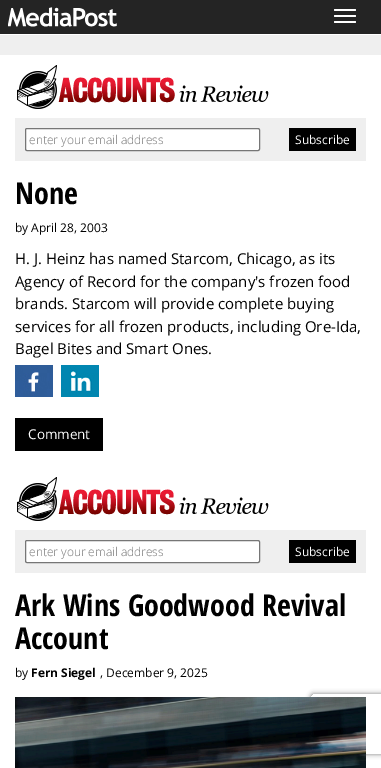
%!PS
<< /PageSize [381 768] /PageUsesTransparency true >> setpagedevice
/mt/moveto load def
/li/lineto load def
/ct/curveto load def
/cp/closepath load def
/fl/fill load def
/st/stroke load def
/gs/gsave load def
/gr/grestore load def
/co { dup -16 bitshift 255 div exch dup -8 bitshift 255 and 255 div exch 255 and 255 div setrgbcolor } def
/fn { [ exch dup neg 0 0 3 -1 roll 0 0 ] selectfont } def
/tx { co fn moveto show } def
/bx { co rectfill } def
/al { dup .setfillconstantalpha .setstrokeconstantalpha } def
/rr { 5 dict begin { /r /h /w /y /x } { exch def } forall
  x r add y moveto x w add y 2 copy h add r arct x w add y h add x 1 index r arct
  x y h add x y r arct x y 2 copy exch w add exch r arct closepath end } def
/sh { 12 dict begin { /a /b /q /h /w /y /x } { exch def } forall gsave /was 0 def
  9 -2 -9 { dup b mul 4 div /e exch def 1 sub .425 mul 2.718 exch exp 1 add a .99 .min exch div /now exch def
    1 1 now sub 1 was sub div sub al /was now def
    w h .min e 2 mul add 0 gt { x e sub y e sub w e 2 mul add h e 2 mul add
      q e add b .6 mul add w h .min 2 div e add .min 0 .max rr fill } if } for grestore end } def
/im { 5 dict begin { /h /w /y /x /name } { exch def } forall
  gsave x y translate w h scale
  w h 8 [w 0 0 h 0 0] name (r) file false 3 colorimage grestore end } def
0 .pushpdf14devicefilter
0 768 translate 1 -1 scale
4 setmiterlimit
0 0 381 768 16#FFFFFF bx
0 0 381 34 16#242424 bx
(media/1.raw) 8 7 109 20 im
16#FFFFFF co
334 9 22 2 1 rr fl
334 15 22 2 1 rr fl
334 21 22 2 1 rr fl
0 35 381 20 16#EFEFEF bx
(media/2.raw) 17 65 252 44 im
15 118 351 43 16#EFEFEF bx
16#FFFFFF co
25.5 128.5 234 22 1.5 rr gs fl gr
16#767676 co
st
289 128 67 23 16#000000 bx
gs
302 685 mt 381 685 li 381 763 li 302 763 li cp 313 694 mt 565 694 li 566 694 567 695 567 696 ct 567 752 li 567 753 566 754 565 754 ct 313 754 li 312 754 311 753 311 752 ct 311 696 li 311 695 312 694 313 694 ct cp eoclip newpath
16#808080 co
311 694 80 60 2 2.5 1 sh
gr
(media/3.raw) 15 365 38 32 im
(media/4.raw) 61 365 38 32 im
15 418 88 33 16#000000 bx
(media/2.raw) 17 477 252 44 im
15 530 351 43 16#EFEFEF bx
16#FFFFFF co
25.5 540.5 234 22 1.5 rr gs fl gr
16#767676 co
st
289 540 67 23 16#000000 bx
(media/5.raw) 15 697 351 71 im
(enter your email address) 29 144 /OpenSans-Light 12 16#757575 tx
(Subscribe) 295 144 /OpenSans-Regular 12 16#FFFFFF tx
(None) 15 204 /OpenSansCondensed-Bold 30 16#000000 tx
(by April 28, 2003) 15 232 /OpenSans-Regular 12 16#000000 tx
(H. J. Heinz has named Starcom, Chicago, as its) 15 264 /OpenSans-Regular 15 16#000000 tx
(Agency of Record for the company's frozen food) 15 287 /OpenSans-Regular 15 16#000000 tx
(brands. Starcom will provide complete buying) 15 309 /OpenSans-Regular 15 16#000000 tx
(services for all frozen products, including Ore-Ida,) 15 332 /OpenSans-Regular 15 16#000000 tx
(Bagel Bites and Smart Ones.) 15 354 /OpenSans-Regular 15 16#000000 tx
(Comment) 28 439 /OpenSans-Regular 13.5 16#FFFFFF tx
(enter your email address) 29 556 /OpenSans-Light 12 16#757575 tx
(Subscribe) 295 556 /OpenSans-Regular 12 16#FFFFFF tx
(Ark Wins Goodwood Revival) 15 616 /OpenSansCondensed-Bold 30 16#000000 tx
(Account) 15 649 /OpenSansCondensed-Bold 30 16#000000 tx
(by) 15 677 /OpenSans-Regular 12 16#000000 tx
(Fern Siegel) 31 677 /OpenSans-Bold 12 16#000000 tx
(, December 9, 2025) 100 677 /OpenSans-Regular 12 16#000000 tx
.poppdf14devicefilter showpage
